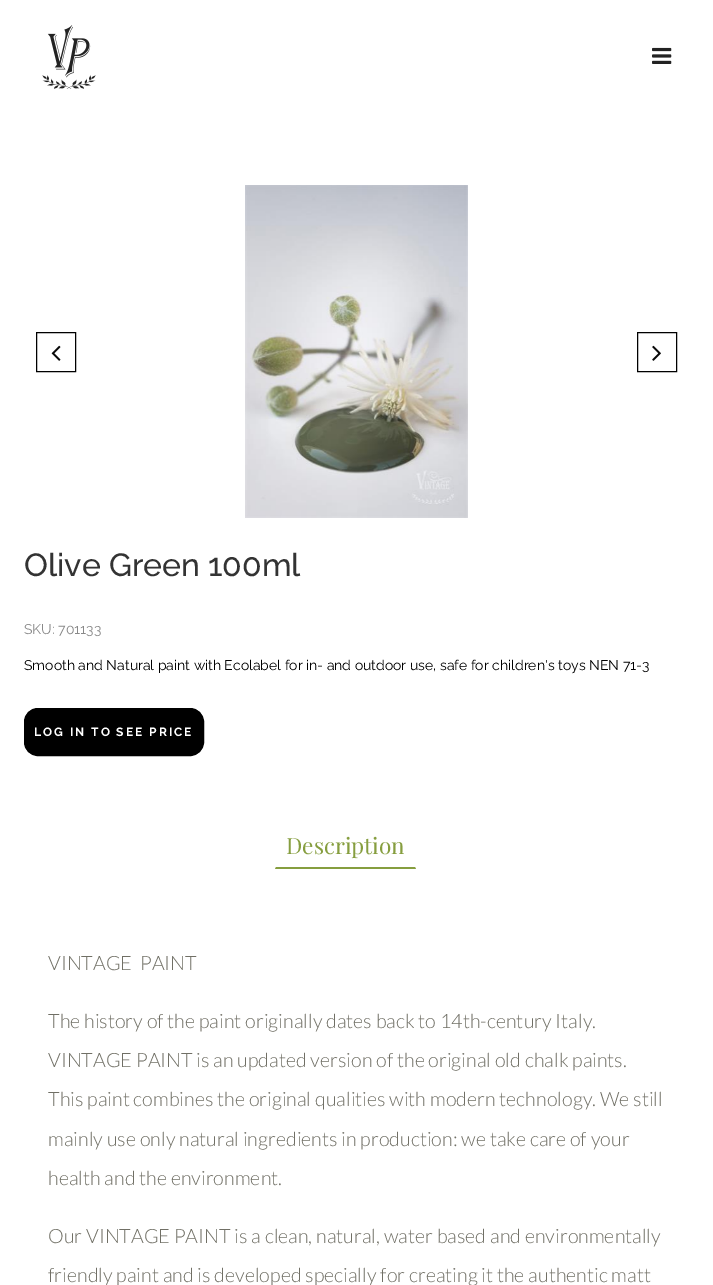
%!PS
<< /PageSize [713 1285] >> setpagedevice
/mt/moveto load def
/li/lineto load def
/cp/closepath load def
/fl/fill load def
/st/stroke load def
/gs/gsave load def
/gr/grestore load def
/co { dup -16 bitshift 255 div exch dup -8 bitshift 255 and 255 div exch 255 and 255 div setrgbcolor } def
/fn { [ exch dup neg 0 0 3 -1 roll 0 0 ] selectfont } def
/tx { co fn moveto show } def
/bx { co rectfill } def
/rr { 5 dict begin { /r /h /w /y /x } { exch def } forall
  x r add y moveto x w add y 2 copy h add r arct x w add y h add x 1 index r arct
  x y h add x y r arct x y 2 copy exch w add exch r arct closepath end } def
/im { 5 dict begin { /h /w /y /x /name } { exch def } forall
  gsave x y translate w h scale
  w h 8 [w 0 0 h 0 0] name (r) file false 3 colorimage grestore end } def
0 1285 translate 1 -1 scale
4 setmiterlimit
0 0 713 1285 16#FFFFFF bx
(media/1.raw) 42 25 54 64 im
(media/2.raw) 652 47 20 17 im
16#000000 co
36.5 332.5 39 39 rectstroke
(media/3.raw) 51 345 10 16 im
(media/4.raw) 245 185 223 333 im
637.5 332.5 39 39 rectstroke
(media/5.raw) 652 345 9 16 im
24.5 708.5 179 47 13.5 rr gs fl gr
st
16#869E3F co
416 869 mt 415 867 li 276 867 li 275 869 li cp fl
(Olive Green 100ml) 24 576 /Raleway-Medium 32 16#333333 tx
(SKU: 701133) 24 634 /Raleway-Regular 14 16#888888 tx
(Smooth and Natural paint with Ecolabel for in- and outdoor use, safe for children's toys NEN 71-3) 24 670 /Raleway-Regular 14 16#000000 tx
/Raleway-Bold 12 fn
16#FFFFFF co
34 736 mt 2 0 (LOG IN TO SEE PRICE) ashow
(Description) 286 854 /PlayfairDisplay-Regular 22.5 16#869E3F tx
/Lato-Light 19.7 fn
16#706F65 co
48 970 mt 4 0 32 (VINTAGE PAINT) widthshow
(The history of the paint originally dates back to 14th-century Italy.) 48 1028 /Lato-Light 19.7 16#706F65 tx
(VINTAGE PAINT is an updated version of the original old chalk paints.) 48 1067 /Lato-Light 19.7 16#706F65 tx
(This paint combines the original qualities with modern technology. We still) 48 1106 /Lato-Light 19.7 16#706F65 tx
(mainly use only natural ingredients in production: we take care of your) 48 1146 /Lato-Light 19.7 16#706F65 tx
(health and the environment.) 48 1185 /Lato-Light 19.7 16#706F65 tx
(Our VINTAGE PAINT is a clean, natural, water based and environmentally) 48 1243 /Lato-Light 19.7 16#706F65 tx
(friendly paint and is developed specially for creating it the authentic matt) 48 1282 /Lato-Light 19.7 16#706F65 tx
showpage
